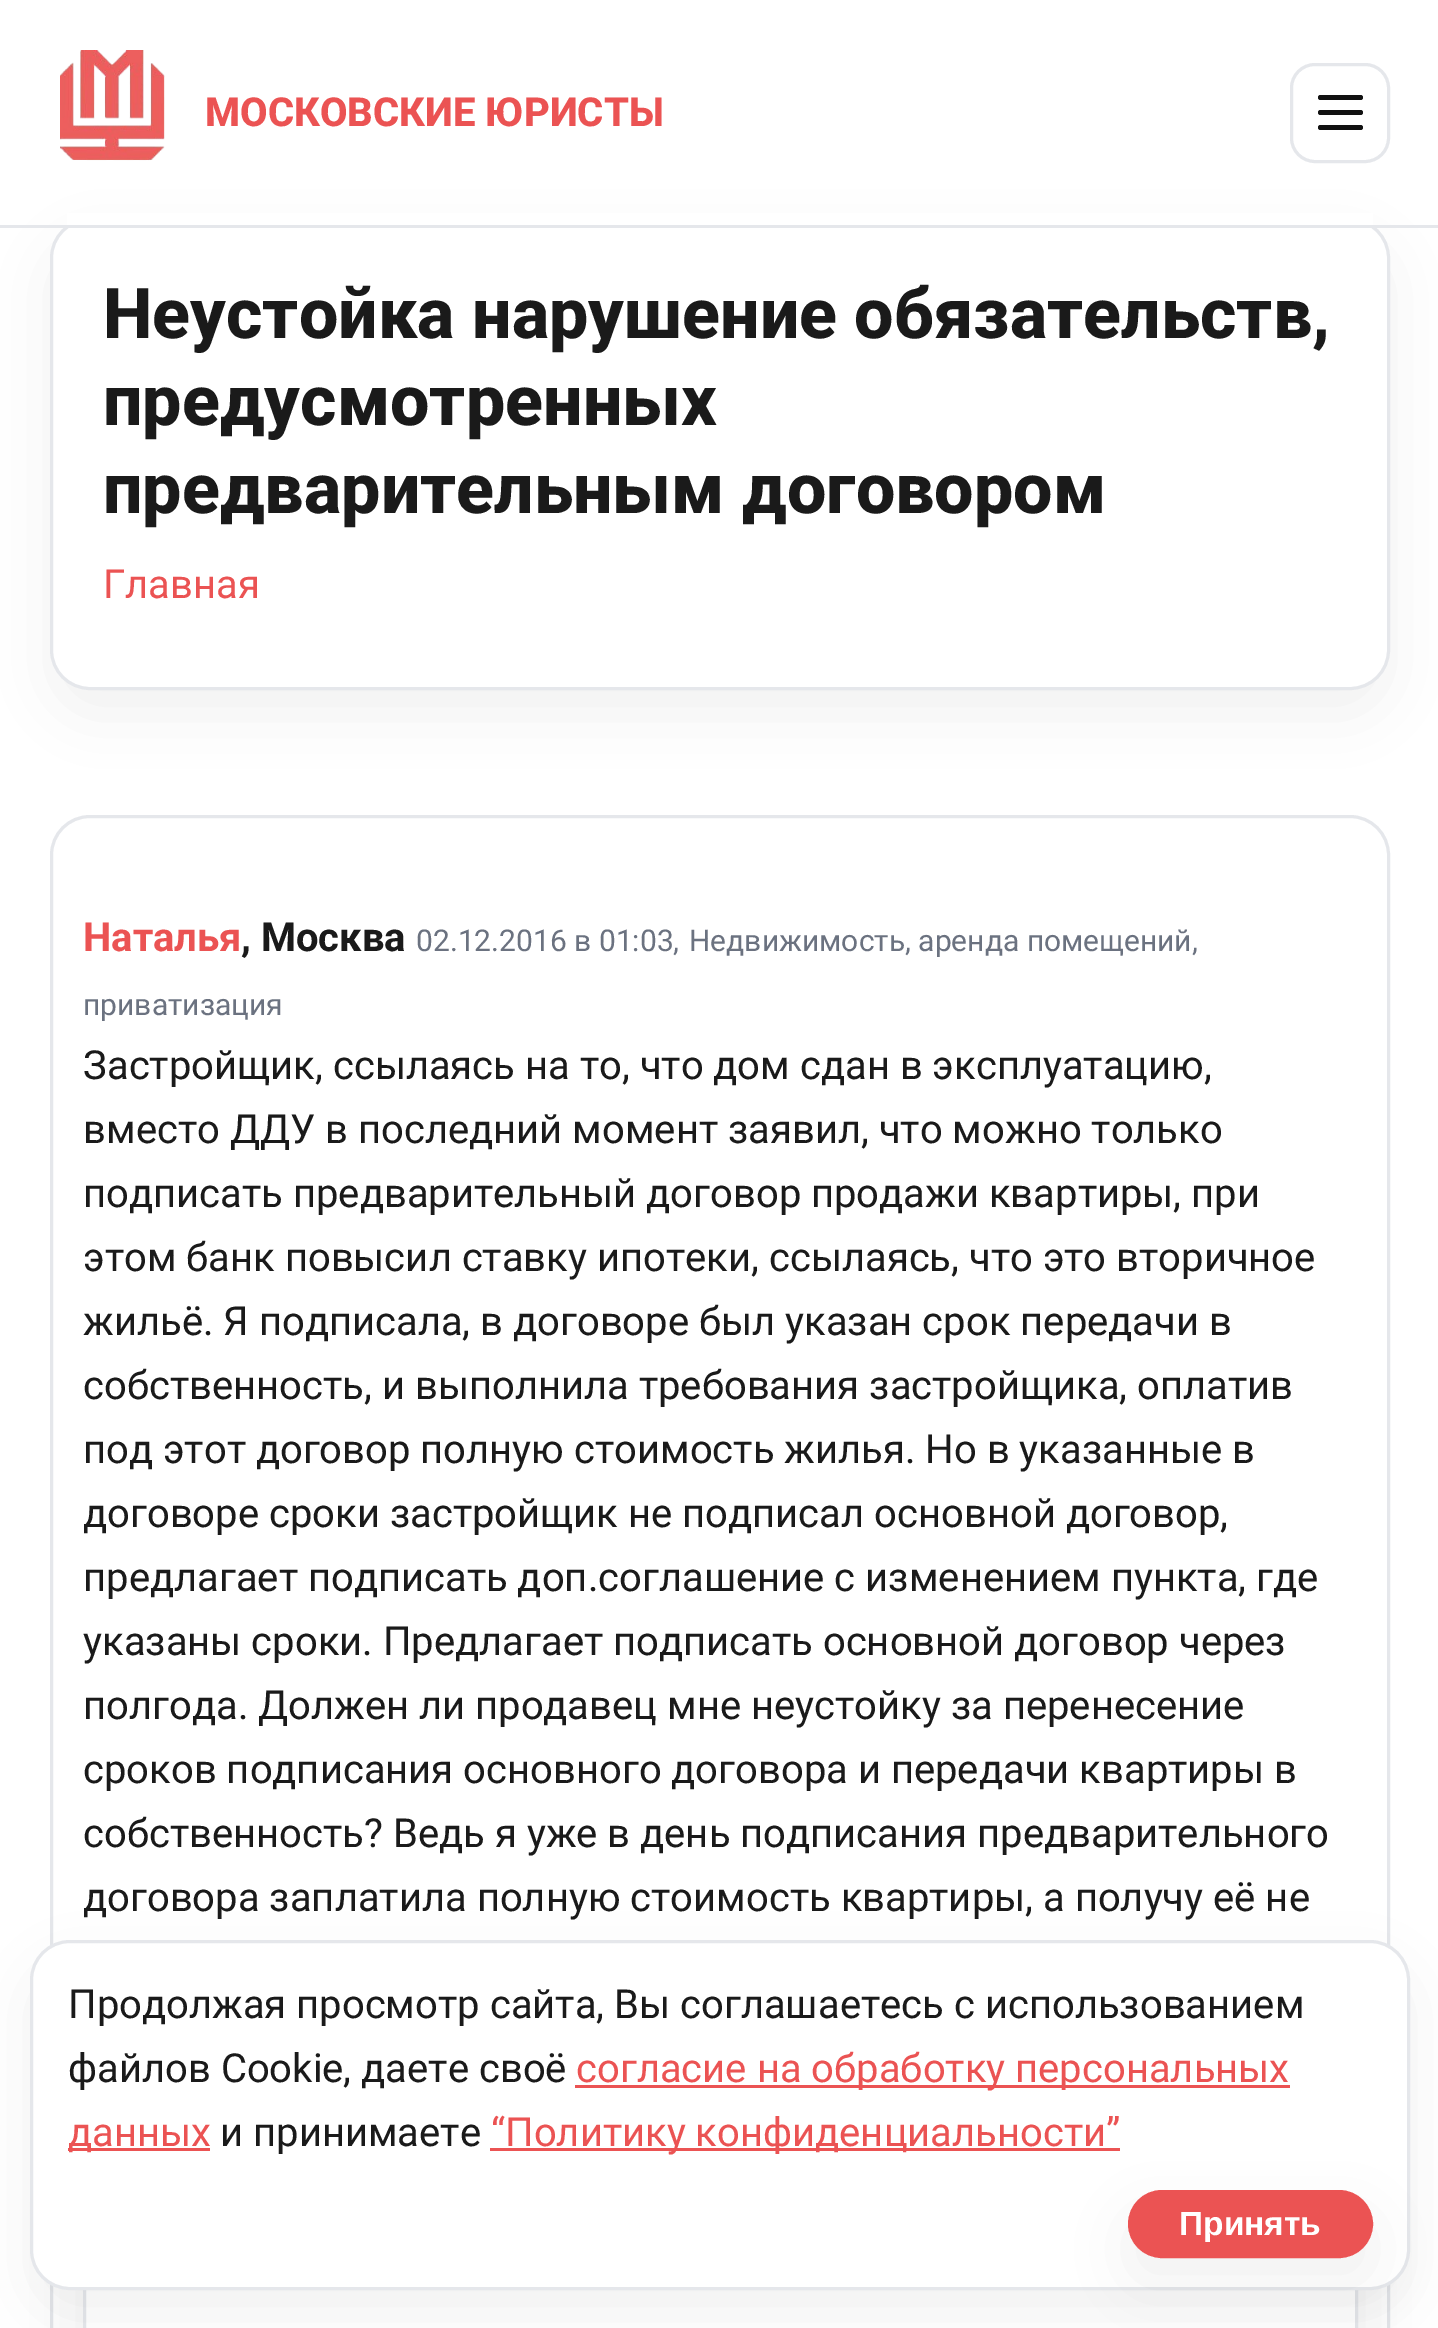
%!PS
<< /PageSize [1438 2328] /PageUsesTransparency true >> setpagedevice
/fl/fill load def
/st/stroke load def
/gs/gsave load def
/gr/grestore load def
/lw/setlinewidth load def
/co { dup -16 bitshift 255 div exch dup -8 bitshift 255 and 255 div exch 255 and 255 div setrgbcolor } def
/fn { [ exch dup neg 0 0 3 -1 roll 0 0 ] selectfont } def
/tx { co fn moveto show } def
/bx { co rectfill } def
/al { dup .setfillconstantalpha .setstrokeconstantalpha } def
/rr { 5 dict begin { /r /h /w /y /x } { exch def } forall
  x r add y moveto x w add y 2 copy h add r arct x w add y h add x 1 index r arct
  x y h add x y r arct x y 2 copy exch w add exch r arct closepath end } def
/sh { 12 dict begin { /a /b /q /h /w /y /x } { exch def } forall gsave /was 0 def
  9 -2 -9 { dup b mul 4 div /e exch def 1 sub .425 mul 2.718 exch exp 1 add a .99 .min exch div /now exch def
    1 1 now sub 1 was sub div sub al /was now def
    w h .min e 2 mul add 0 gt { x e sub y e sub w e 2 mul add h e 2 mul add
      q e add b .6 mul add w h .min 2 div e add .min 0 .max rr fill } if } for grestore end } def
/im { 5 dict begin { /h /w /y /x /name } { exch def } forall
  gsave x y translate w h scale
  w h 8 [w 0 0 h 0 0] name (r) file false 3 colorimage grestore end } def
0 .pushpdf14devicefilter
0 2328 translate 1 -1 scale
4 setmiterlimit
0 0 1438 2328 16#FFFFFF bx
16#000000 co
50 243 1340 472 40 31 .06 sh
16#FFFFFF co
51.5 219.5 1337 469 38.5 rr gs fl gr
16#E5E7EB co
3 lw
st
67 213 1306 12 16#FFFFFF bx
0 225 1438 3 16#E5E7EB bx
(media/1.raw) 60 50 105 111 im
1291.5 64.5 97 97 23.5 rr st
16#111111 co
1318 110 45 5 2.5 rr fl
1318 95 45 5 2.5 rr fl
1318 125 45 5 2.5 rr fl
16#E5E7EB co
51.5 816.5 1337 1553 38.5 rr st
16#000000 co
83 2158 1275 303 40 31 .06 sh
86 2290 1269 38 16#FFFFFF bx
16#E5E7EB co
84.5 2134.5 1272 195 rectstroke
16#000000 co
30 1965 1380 350 40 31 .06 sh
16#FFFFFF co
31.5 1941.5 1377 347 38.5 rr gs fl gr
16#E5E7EB co
st
575 2085 715 3 16#EB5353 bx
68 2148 142 3 16#EB5353 bx
490 2148 630 3 16#EB5353 bx
16#000000 co
1128 2215 245 68 34 31 .06 sh
16#EB5353 co
1129.5 2191.5 242 65 32.5 rr gs fl gr
st
(МОСКОВСКИЕ ЮРИСТЫ) 205 126 /Roboto-ExtraBold 40 16#EB5353 tx
(Неустойка нарушение обязательств,) 103 338 /Roboto-ExtraBold 70 16#1A1A1A tx
(предусмотренных) 103 425 /Roboto-ExtraBold 70 16#1A1A1A tx
(предварительным договором) 103 513 /Roboto-ExtraBold 70 16#1A1A1A tx
(Главная) 103 598 /Roboto-Regular 40 16#EB5353 tx
(Наталья) 83 951 /Roboto-Bold 40 16#EB5353 tx
(, Москва) 241 951 /Roboto-Bold 40 16#1A1A1A tx
(02.12.2016 в 01:03,) 416 951 /Roboto-Regular 30 16#6B7280 tx
(Недвижимость, аренда помещений,) 689 951 /Roboto-Regular 30 16#6B7280 tx
(приватизация) 83 1015 /Roboto-Regular 30 16#6B7280 tx
(Застройщик, ссылаясь на то, что дом сдан в эксплуатацию,) 83 1079 /Roboto-Regular 40 16#1A1A1A tx
(вместо ДДУ в последний момент заявил, что можно только) 83 1143 /Roboto-Regular 40 16#1A1A1A tx
(подписать предварительный договор продажи квартиры, при) 83 1207 /Roboto-Regular 40 16#1A1A1A tx
(этом банк повысил ставку ипотеки, ссылаясь, что это вторичное) 83 1271 /Roboto-Regular 40 16#1A1A1A tx
(жильё. Я подписала, в договоре был указан срок передачи в) 83 1335 /Roboto-Regular 40 16#1A1A1A tx
(собственность, и выполнила требования застройщика, оплатив) 83 1399 /Roboto-Regular 40 16#1A1A1A tx
(под этот договор полную стоимость жилья. Но в указанные в) 83 1463 /Roboto-Regular 40 16#1A1A1A tx
(договоре сроки застройщик не подписал основной договор,) 83 1527 /Roboto-Regular 40 16#1A1A1A tx
(предлагает подписать доп.соглашение с изменением пункта, где) 83 1591 /Roboto-Regular 40 16#1A1A1A tx
(указаны сроки. Предлагает подписать основной договор через) 83 1655 /Roboto-Regular 40 16#1A1A1A tx
(полгода. Должен ли продавец мне неустойку за перенесение) 83 1719 /Roboto-Regular 40 16#1A1A1A tx
(сроков подписания основного договора и передачи квартиры в) 83 1783 /Roboto-Regular 40 16#1A1A1A tx
(собственность? Ведь я уже в день подписания предварительного) 83 1847 /Roboto-Regular 40 16#1A1A1A tx
(договора заплатила полную стоимость квартиры, а получу её не) 83 1911 /Roboto-Regular 40 16#1A1A1A tx
(Продолжая просмотр сайта, Вы соглашаетесь с использованием) 68 2018 /Roboto-Regular 40 16#1A1A1A tx
(файлов Cookie, даете своё) 68 2082 /Roboto-Regular 40 16#1A1A1A tx
(согласие на обработку персональных) 576 2082 /Roboto-Regular 40 16#EB5353 tx
(данных) 68 2146 /Roboto-Regular 40 16#EB5353 tx
(и принимаете) 220 2146 /Roboto-Regular 40 16#1A1A1A tx
(“Политику конфиденциальности”) 491 2146 /Roboto-Regular 40 16#EB5353 tx
(Принять) 1179 2235 /LiberationSans-Bold 33.5 16#FFFFFF tx
.poppdf14devicefilter showpage
